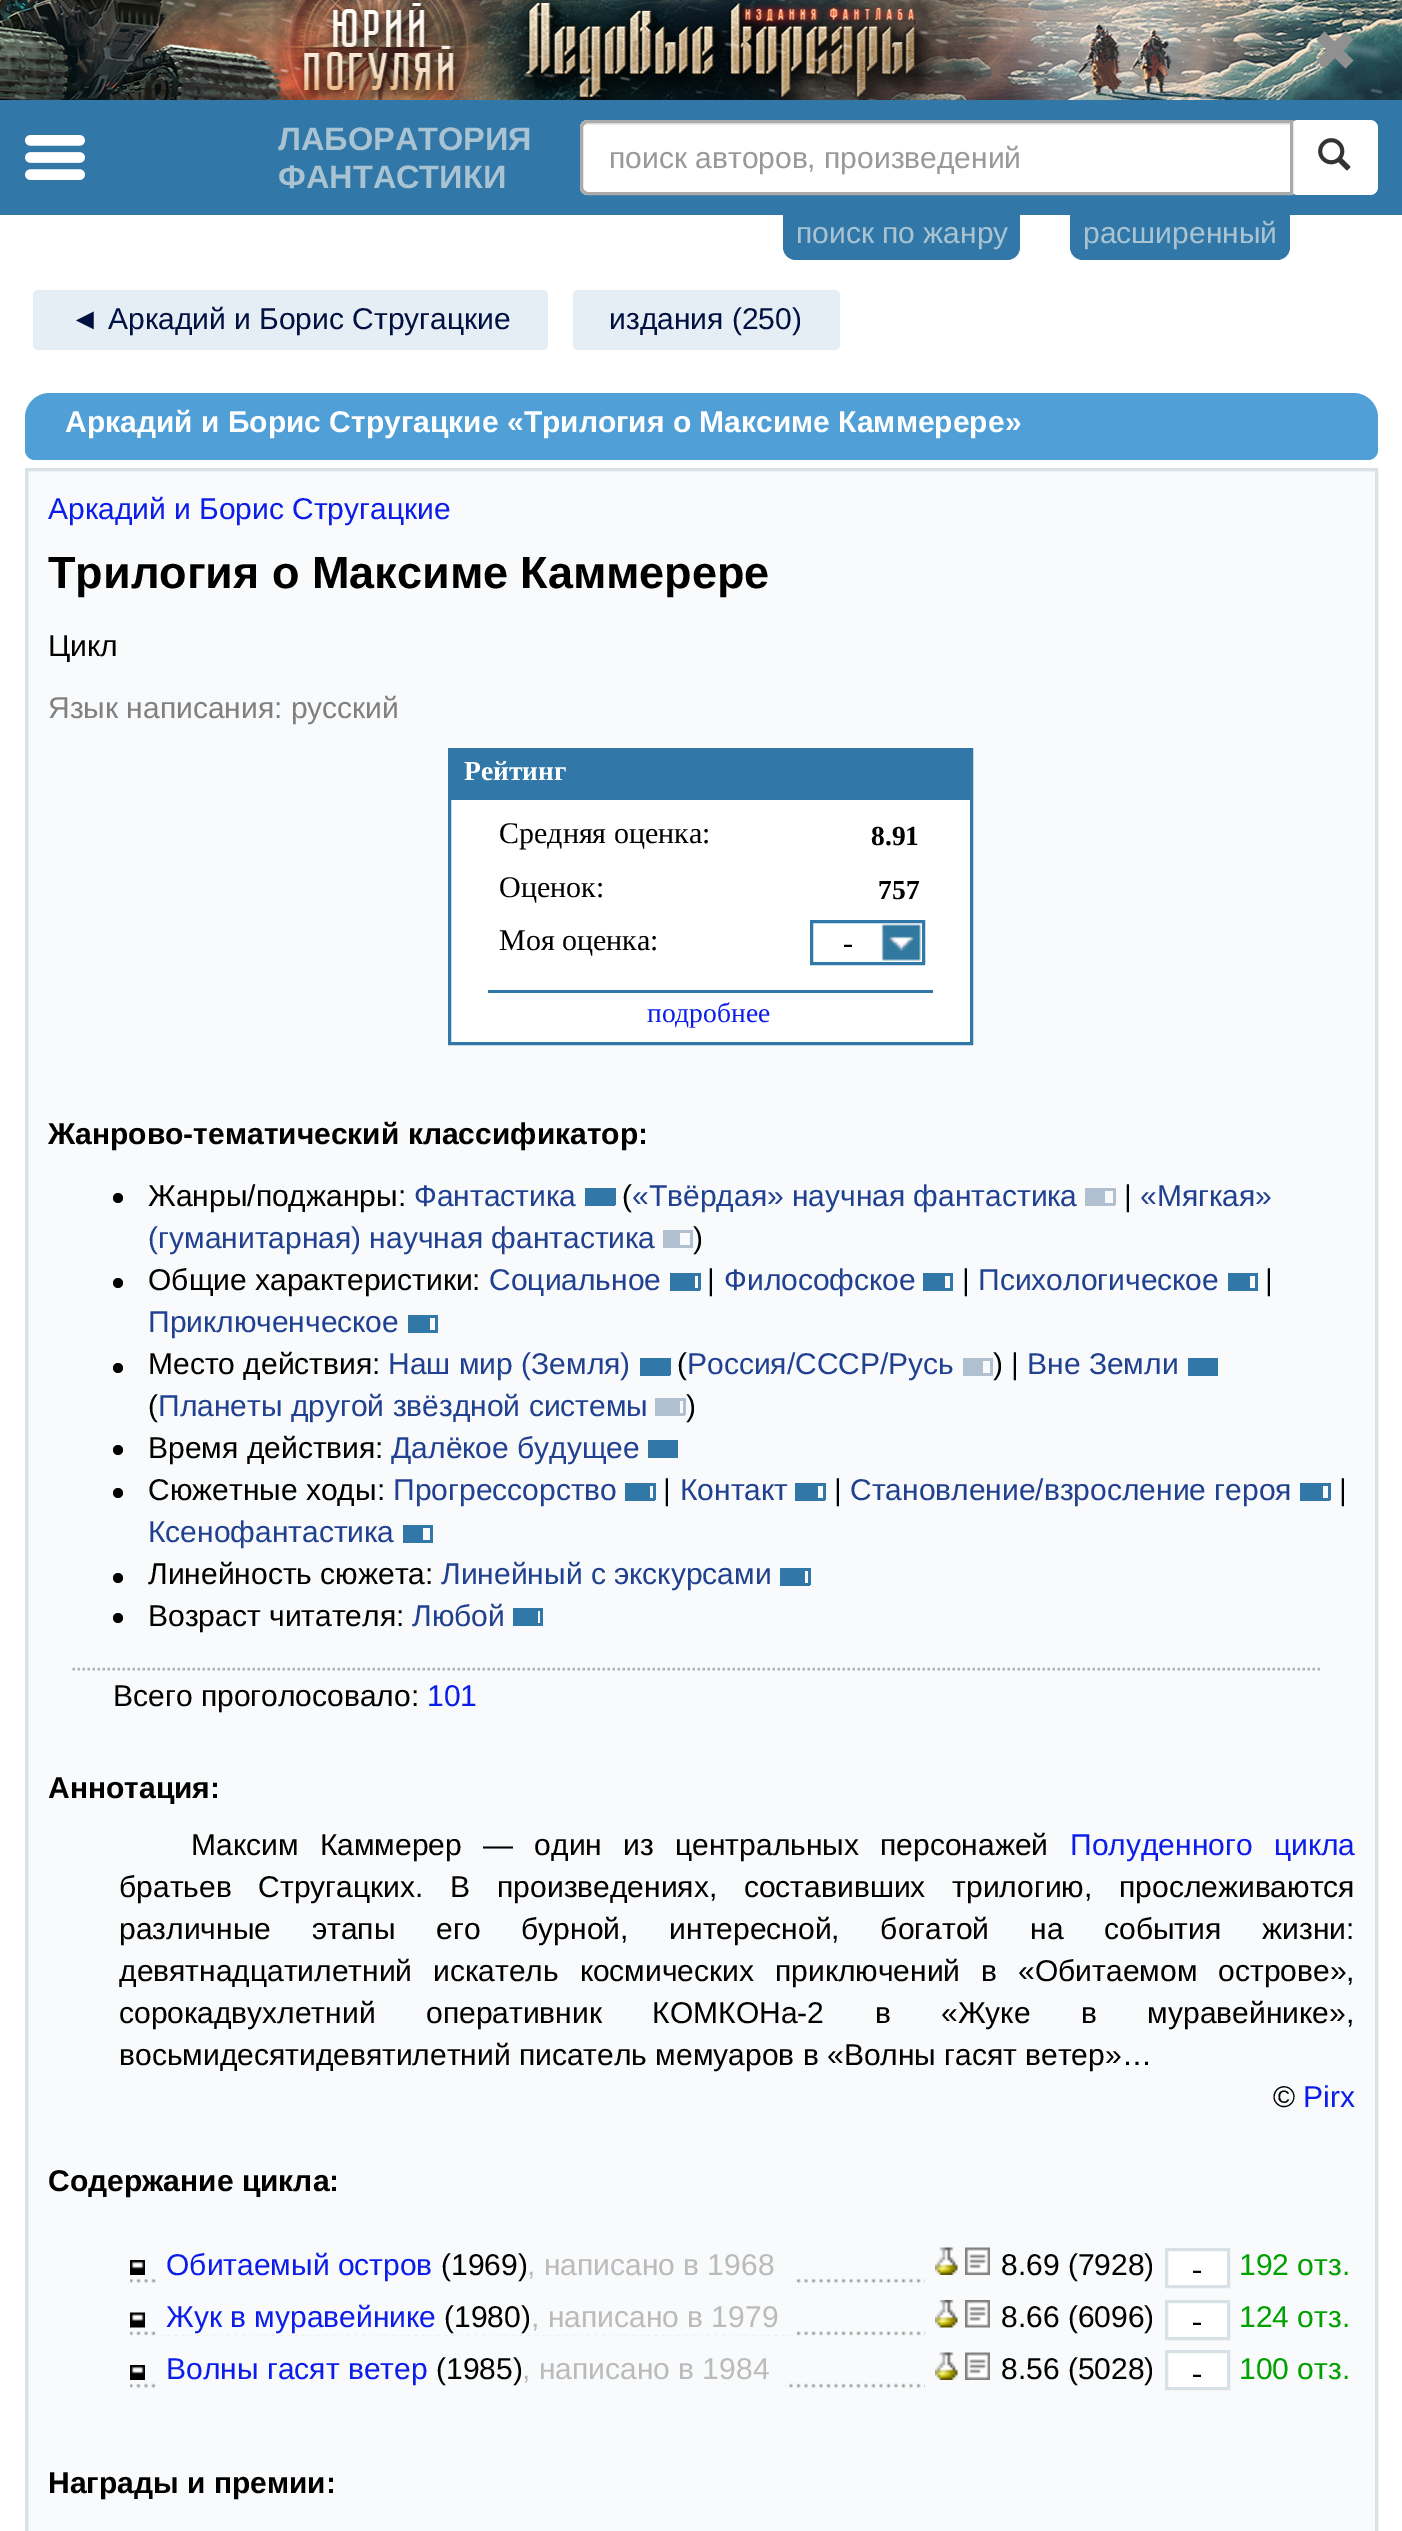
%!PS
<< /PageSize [1402 2531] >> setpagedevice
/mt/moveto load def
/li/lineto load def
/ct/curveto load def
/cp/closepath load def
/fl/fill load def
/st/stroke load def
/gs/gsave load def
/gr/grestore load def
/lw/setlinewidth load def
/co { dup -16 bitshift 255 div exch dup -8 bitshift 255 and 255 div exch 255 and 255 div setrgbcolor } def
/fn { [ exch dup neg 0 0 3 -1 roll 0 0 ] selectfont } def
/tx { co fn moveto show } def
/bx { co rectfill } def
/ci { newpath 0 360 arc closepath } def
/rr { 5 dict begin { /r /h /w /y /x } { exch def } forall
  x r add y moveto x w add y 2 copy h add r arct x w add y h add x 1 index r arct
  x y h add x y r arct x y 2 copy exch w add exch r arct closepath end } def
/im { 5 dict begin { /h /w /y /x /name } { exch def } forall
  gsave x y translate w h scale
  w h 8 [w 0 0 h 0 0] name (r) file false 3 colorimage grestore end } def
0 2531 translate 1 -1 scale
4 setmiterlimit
0 0 1402 2531 16#FFFFFF bx
(media/1.raw) 0 0 1402 100 im
16#909090 co
1316.5 60.5 mt 1327 50 li 1316.5 39.5 li 1324.5 31.5 li 1335 42 li 1345.5 31.5 li 1353.5 39.5 li 1343 50 li 1353.5 60.5 li 1345.5 68.5 li 1335 58 li 1324.5 68.5 li cp fl
0 100 1402 115 16#3178A8 bx
(media/2.raw) 25 135 60 45 im
16#FFFFFF co
1290 120 88 75 8 rr fl
588 120 mt 1293 120 li 1293 195 li 588 195 li 583.5 195 580 191.5 580 187 ct 580 128 li 580 123.5 583.5 120 588 120 ct cp fl
16#ECECEC co
588 125 mt 1290 125 li 1290 123 li 588 123 li 586 123 583 125 583 127 ct 584 126 586 125 588 125 ct cp fl
16#AAAAAA co
3 lw
588 121.5 mt 1291.5 121.5 li 1291.5 193.5 li 588 193.5 li 584.5 193.5 581.5 190.5 581.5 187 ct 581.5 128 li 581.5 124.5 584.5 121.5 588 121.5 ct cp st
(media/3.raw) 1318 138 33 33 im
16#3178A8 co
783 200 237 60 13 rr fl
1070 200 220 60 13 rr fl
16#E6EEF5 co
33 290 515 60 5 rr fl
573 290 267 60 5 rr fl
16#50A0D7 co
50 393 mt 1353 393 li 1367 393 1378 404 1378 418 ct 1378 450 li 1378 455.5 1373.5 460 1368 460 ct 35 460 li 29.5 460 25 455.5 25 450 ct 25 418 li 25 404 36 393 50 393 ct cp fl
16#F9FAFB co
26.5 469.5 mt 1376.5 469.5 li 1376.5 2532.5 li 26.5 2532.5 li cp gs fl gr
16#D8E1E6 co
st
451 800 519 242 16#FFFFFF bx
16#3178A8 co
449.5 749.5 522 294 rectstroke
451 751 519 49 16#3178A8 bx
(media/4.raw) 881 924 40 37 im
811.5 921.5 112 42 rectstroke
488 990 445 3 16#3178A8 bx
1105 1188 10 3 16#B0C0D0 bx
1113 1188 3 17 16#B0C0D0 bx
1085 1203 30 3 16#B0C0D0 bx
1085 1188 20 15 16#B0C0D0 bx
680 1230 13 3 16#B0C0D0 bx
690 1230 3 18 16#B0C0D0 bx
680 1245 13 3 16#B0C0D0 bx
663 1230 17 18 16#B0C0D0 bx
16#000000 co
118 1198 5 ci fl
613 1188 3 17 16#3178A8 bx
585 1203 30 3 16#3178A8 bx
585 1188 28 15 16#3178A8 bx
16#000000 co
118 1283 5 ci fl
695 1273 5 3 16#3178A8 bx
698 1273 3 17 16#3178A8 bx
670 1288 30 3 16#3178A8 bx
670 1273 25 15 16#3178A8 bx
945 1273 8 3 16#3178A8 bx
950 1273 3 17 16#3178A8 bx
923 1288 30 3 16#3178A8 bx
923 1273 22 15 16#3178A8 bx
1250 1273 8 3 16#3178A8 bx
1255 1273 3 17 16#3178A8 bx
1228 1288 30 3 16#3178A8 bx
1228 1273 22 15 16#3178A8 bx
430 1315 8 3 16#3178A8 bx
435 1315 3 18 16#3178A8 bx
430 1330 8 3 16#3178A8 bx
408 1315 22 18 16#3178A8 bx
16#000000 co
118 1368 5 ci fl
668 1358 3 17 16#3178A8 bx
640 1373 30 3 16#3178A8 bx
640 1358 28 15 16#3178A8 bx
983 1358 10 3 16#B0C0D0 bx
990 1358 3 17 16#B0C0D0 bx
963 1373 30 3 16#B0C0D0 bx
963 1358 20 15 16#B0C0D0 bx
1215 1358 3 17 16#3178A8 bx
1188 1373 30 3 16#3178A8 bx
1188 1358 27 15 16#3178A8 bx
680 1398 5 3 16#B0C0D0 bx
683 1398 3 17 16#B0C0D0 bx
655 1413 30 3 16#B0C0D0 bx
655 1398 25 15 16#B0C0D0 bx
16#000000 co
118 1450 5 ci fl
648 1440 30 18 16#3178A8 bx
16#000000 co
118 1493 5 ci fl
650 1483 5 3 16#3178A8 bx
653 1483 3 17 16#3178A8 bx
625 1498 30 3 16#3178A8 bx
625 1483 25 15 16#3178A8 bx
818 1483 7 3 16#3178A8 bx
823 1483 3 17 16#3178A8 bx
795 1498 30 3 16#3178A8 bx
795 1483 23 15 16#3178A8 bx
1323 1483 7 3 16#3178A8 bx
1328 1483 3 17 16#3178A8 bx
1300 1498 30 3 16#3178A8 bx
1300 1483 23 15 16#3178A8 bx
423 1525 10 3 16#3178A8 bx
430 1525 3 18 16#3178A8 bx
423 1540 10 3 16#3178A8 bx
403 1525 20 18 16#3178A8 bx
16#000000 co
118 1578 5 ci fl
805 1568 5 3 16#3178A8 bx
808 1568 3 17 16#3178A8 bx
780 1583 30 3 16#3178A8 bx
780 1568 25 15 16#3178A8 bx
16#000000 co
118 1618 5 ci fl
538 1608 5 3 16#3178A8 bx
540 1608 3 17 16#3178A8 bx
513 1623 30 3 16#3178A8 bx
513 1608 25 15 16#3178A8 bx
16#AFB0C0 co
2.5 lw
[2.5 2.5] 0 setdash
72.5 1669 mt 1322.5 1669 li st
(media/5.raw) 130 2278 795 5 im
(media/6.raw) 130 2260 15 15 im
159 2278 4 5 16#F9FAFB bx
166 2278 267 5 16#F9FAFB bx
436 2278 357 5 16#F9FAFB bx
(media/7.raw) 935 2247 23 28 im
(media/8.raw) 965 2247 25 28 im
16#FFFFFF co
1166.5 2249.5 mt 1228.5 2249.5 li 1228.5 2286.5 li 1166.5 2286.5 li cp gs fl gr
16#D8E1E6 co
3 lw
[] 0 setdash
st
(media/9.raw) 130 2331 795 5 im
(media/10.raw) 130 2312 15 16 im
159 2331 4 4 16#F9FAFB bx
166 2331 267 4 16#F9FAFB bx
436 2331 342 4 16#F9FAFB bx
781 2331 12 4 16#F9FAFB bx
(media/11.raw) 935 2300 23 28 im
(media/12.raw) 965 2300 25 28 im
16#FFFFFF co
1166.5 2301.5 mt 1228.5 2301.5 li 1228.5 2338.5 li 1166.5 2338.5 li cp gs fl gr
16#D8E1E6 co
st
(media/13.raw) 130 2383 795 5 im
(media/6.raw) 130 2365 15 15 im
159 2383 4 5 16#F9FAFB bx
166 2383 260 5 16#F9FAFB bx
429 2383 94 5 16#F9FAFB bx
526 2383 259 5 16#F9FAFB bx
(media/7.raw) 935 2352 23 28 im
(media/8.raw) 965 2352 25 28 im
16#FFFFFF co
1166.5 2351.5 mt 1228.5 2351.5 li 1228.5 2388.5 li 1166.5 2388.5 li cp gs fl gr
16#D8E1E6 co
st
(ЛАБОРАТОРИЯ) 278 150 /LiberationSans-Bold 32.5 16#A9C3D3 tx
(ФАНТАСТИКИ) 278 188 /LiberationSans-Bold 32.5 16#A9C3D3 tx
(поиск авторов, произведений) 609 168 /LiberationSans-Regular 30 16#999999 tx
(поиск по жанру) 796 243 /LiberationSans-Regular 30 16#A9C3D3 tx
(расширенный) 1083 243 /LiberationSans-Regular 30 16#A9C3D3 tx
(◄ Аркадий и Борис Стругацкие) 70 329 /LiberationSans-Regular 30 16#001040 tx
(издания \(250\)) 609 329 /LiberationSans-Regular 30 16#001040 tx
(Аркадий и Борис Стругацкие «Трилогия о Максиме Каммерере») 65 432 /LiberationSans-Bold 30 16#FFFFFF tx
(Аркадий и Борис Стругацкие) 48 519 /LiberationSans-Regular 30 16#0C1DE9 tx
(Трилогия о Максиме Каммерере) 48 588 /LiberationSans-Bold 45 16#000000 tx
(Цикл) 48 656 /LiberationSans-Regular 30 16#000000 tx
(Язык написания: русский) 48 718 /LiberationSans-Regular 30 16#808080 tx
(Рейтинг) 464 780 /LiberationSerif-Bold 27.5 16#FFFFFF tx
(Средняя оценка:) 499 843 /LiberationSerif-Regular 30 16#000000 tx
(8.91) 871 845 /LiberationSerif-Bold 27.5 16#000000 tx
(Оценок:) 499 897 /LiberationSerif-Regular 30 16#000000 tx
(757) 878 899 /LiberationSerif-Bold 27.5 16#000000 tx
(Моя оценка:) 499 950 /LiberationSerif-Regular 30 16#000000 tx
(-) 843 953 /LiberationSerif-Regular 30 16#000000 tx
(подробнее) 647 1022 /LiberationSerif-Regular 27.5 16#0C1DE9 tx
(Жанрово-тематический классификатор:) 48 1144 /LiberationSans-Bold 30 16#000000 tx
(Жанры/поджанры:) 148 1206 /LiberationSans-Regular 30 16#000000 tx
(«Твёрдая» научная фантастика) 632 1206 /LiberationSans-Regular 30 16#204090 tx
(|) 1124 1206 /LiberationSans-Regular 30 16#000000 tx
(«Мягкая») 1140 1206 /LiberationSans-Regular 30 16#204090 tx
(\(гуманитарная\) научная фантастика) 148 1248 /LiberationSans-Regular 30 16#204090 tx
(\() 622 1206 /LiberationSans-Regular 30 16#000000 tx
(\)) 693 1248 /LiberationSans-Regular 30 16#000000 tx
(Фантастика) 414 1206 /LiberationSans-Regular 30 16#204090 tx
(Общие характеристики:) 148 1290 /LiberationSans-Regular 30 16#000000 tx
(Социальное) 489 1290 /LiberationSans-Regular 30 16#204090 tx
(|) 707 1290 /LiberationSans-Regular 30 16#000000 tx
(Философское) 724 1290 /LiberationSans-Regular 30 16#204090 tx
(|) 962 1290 /LiberationSans-Regular 30 16#000000 tx
(Психологическое) 978 1290 /LiberationSans-Regular 30 16#204090 tx
(|) 1265 1290 /LiberationSans-Regular 30 16#000000 tx
(Приключенческое) 148 1332 /LiberationSans-Regular 30 16#204090 tx
(Место действия:) 148 1374 /LiberationSans-Regular 30 16#000000 tx
(Наш мир \(Земля\)) 388 1374 /LiberationSans-Regular 30 16#204090 tx
(\() 677 1374 /LiberationSans-Regular 30 16#000000 tx
(Россия/СССР/Русь) 687 1374 /LiberationSans-Regular 30 16#204090 tx
(\) |) 993 1374 /LiberationSans-Regular 30 16#000000 tx
(Вне Земли) 1027 1374 /LiberationSans-Regular 30 16#204090 tx
(\() 148 1416 /LiberationSans-Regular 30 16#000000 tx
(Планеты другой звёздной системы) 158 1416 /LiberationSans-Regular 30 16#204090 tx
(\)) 686 1416 /LiberationSans-Regular 30 16#000000 tx
(Время действия:) 148 1458 /LiberationSans-Regular 30 16#000000 tx
(Далёкое будущее) 391 1458 /LiberationSans-Regular 30 16#204090 tx
(Сюжетные ходы:) 148 1500 /LiberationSans-Regular 30 16#000000 tx
(Прогрессорство) 393 1500 /LiberationSans-Regular 30 16#204090 tx
(|) 663 1500 /LiberationSans-Regular 30 16#000000 tx
(Контакт) 680 1500 /LiberationSans-Regular 30 16#204090 tx
(|) 834 1500 /LiberationSans-Regular 30 16#000000 tx
(Становление/взросление героя) 850 1500 /LiberationSans-Regular 30 16#204090 tx
(|) 1339 1500 /LiberationSans-Regular 30 16#000000 tx
(Ксенофантастика) 148 1542 /LiberationSans-Regular 30 16#204090 tx
(Линейность сюжета:) 148 1584 /LiberationSans-Regular 30 16#000000 tx
(Линейный с экскурсами) 441 1584 /LiberationSans-Regular 30 16#204090 tx
(Возраст читателя:) 148 1626 /LiberationSans-Regular 30 16#000000 tx
(Любой) 412 1626 /LiberationSans-Regular 30 16#204090 tx
(Всего проголосовало:) 113 1706 /LiberationSans-Regular 30 16#000000 tx
(101) 427 1706 /LiberationSans-Regular 30 16#0C1DE9 tx
(Аннотация:) 48 1798 /LiberationSans-Bold 30 16#000000 tx
/LiberationSans-Regular 30 fn
191 1855 mt 13 0 32 (Максим Каммерер — один из центральных персонажей) widthshow
16#0C1DE9 co
1070 1855 mt 13 0 32 (Полуденного цикла) widthshow
16#000000 co
119 1897 mt 18.5 0 32 (братьев Стругацких. В произведениях, составивших трилогию, прослеживаются) widthshow
119 1939 mt 32.5 0 32 (различные этапы его бурной, интересной, богатой на события жизни:) widthshow
119 1981 mt 12.75 0 32 (девятнадцатилетний искатель космических приключений в «Обитаемом острове»,) widthshow
119 2023 mt 42.25 0 32 (сорокадвухлетний оперативник КОМКОНа-2 в «Жуке в муравейнике»,) widthshow
(восьмидесятидевятилетний писатель мемуаров в «Волны гасят ветер»…) 119 2065 /LiberationSans-Regular 30 16#000000 tx
(©) 1273 2107 /LiberationSans-Regular 30 16#000000 tx
(Pirx) 1303 2107 /LiberationSans-Regular 30 16#0C1DE9 tx
(Содержание цикла:) 48 2191 /LiberationSans-Bold 30 16#000000 tx
(Обитаемый остров) 166 2275 /LiberationSans-Regular 30 16#0C1DE9 tx
(\(1969\)) 441 2275 /LiberationSans-Regular 30 16#000000 tx
(, написано в 1968) 527 2275 /LiberationSans-Regular 30 16#BBBBBB tx
(8.69 \(7928\)) 1001 2275 /LiberationSans-Regular 30 16#000000 tx
(-) 1192 2279 /LiberationSerif-Regular 30 16#000000 tx
(192 отз.) 1239 2275 /LiberationSans-Regular 30 16#00A000 tx
(Жук в муравейнике) 166 2327 /LiberationSans-Regular 30 16#0C1DE9 tx
(\(1980\)) 444 2327 /LiberationSans-Regular 30 16#000000 tx
(, написано в 1979) 531 2327 /LiberationSans-Regular 30 16#BBBBBB tx
(8.66 \(6096\)) 1001 2327 /LiberationSans-Regular 30 16#000000 tx
(-) 1192 2331 /LiberationSerif-Regular 30 16#000000 tx
(124 отз.) 1239 2327 /LiberationSans-Regular 30 16#00A000 tx
(Волны гасят ветер) 166 2379 /LiberationSans-Regular 30 16#0C1DE9 tx
(\(1985\)) 436 2379 /LiberationSans-Regular 30 16#000000 tx
(, написано в 1984) 522 2379 /LiberationSans-Regular 30 16#BBBBBB tx
(8.56 \(5028\)) 1001 2379 /LiberationSans-Regular 30 16#000000 tx
(-) 1192 2383 /LiberationSerif-Regular 30 16#000000 tx
(100 отз.) 1239 2379 /LiberationSans-Regular 30 16#00A000 tx
(Награды и премии:) 48 2493 /LiberationSans-Bold 30 16#000000 tx
showpage
